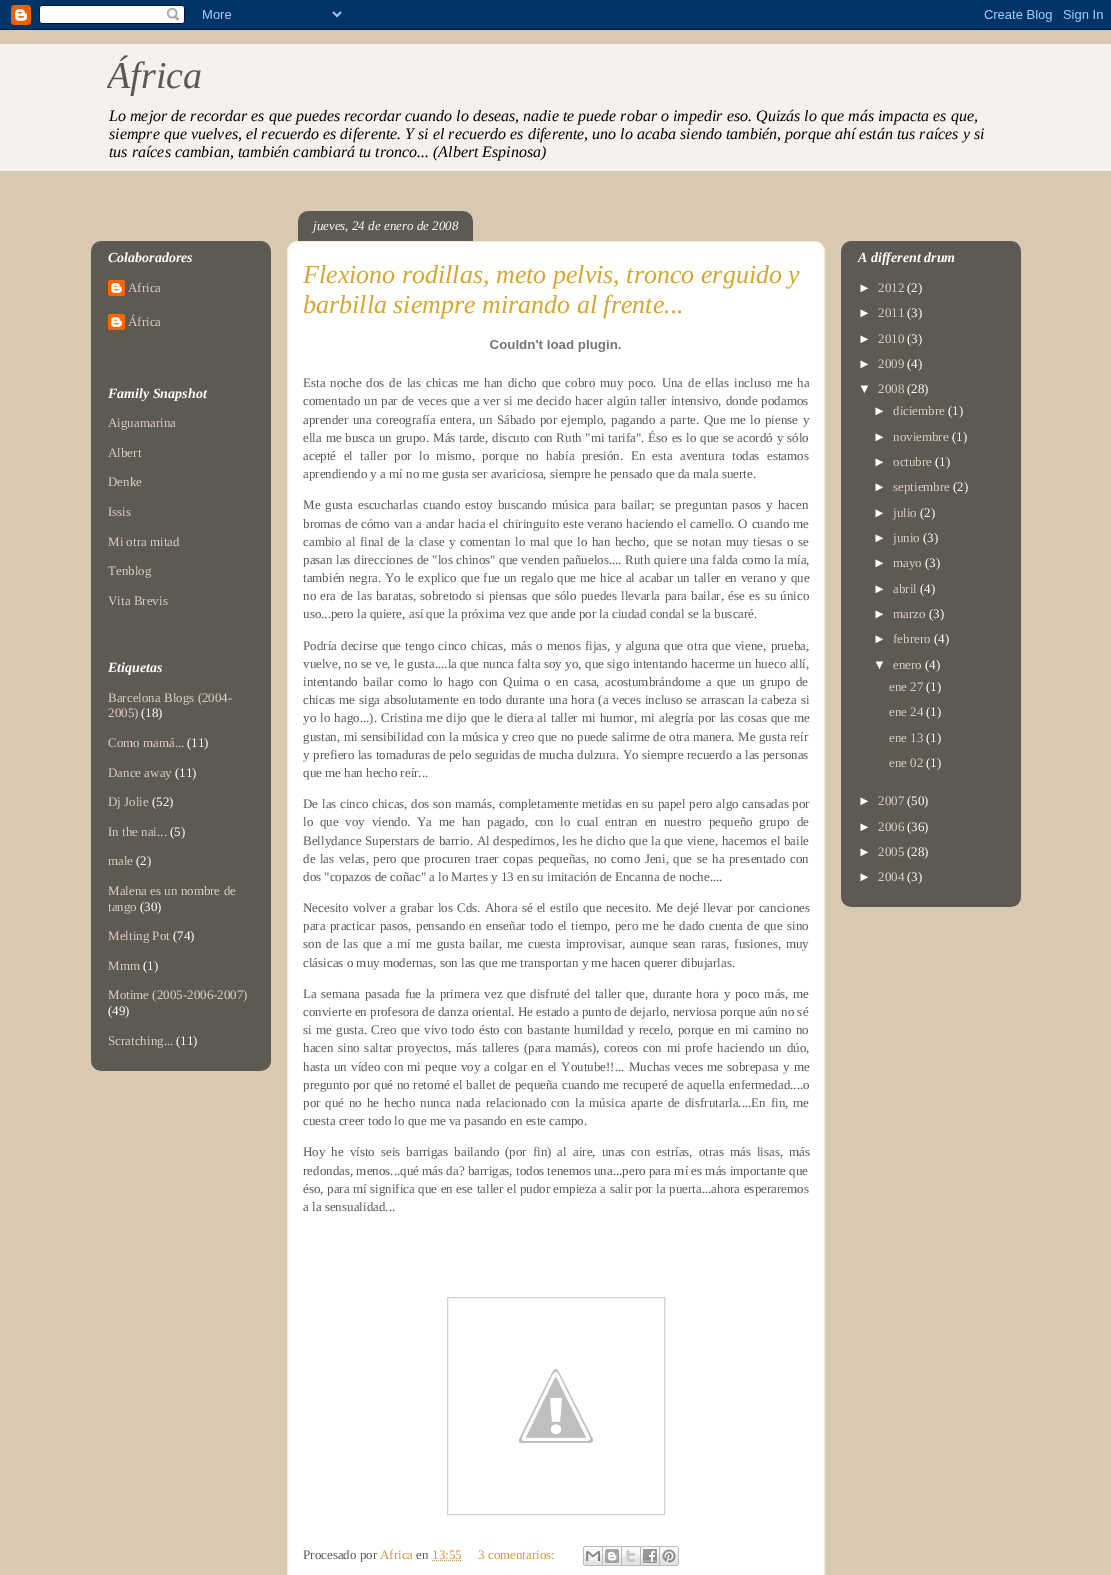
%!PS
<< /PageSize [1111 1575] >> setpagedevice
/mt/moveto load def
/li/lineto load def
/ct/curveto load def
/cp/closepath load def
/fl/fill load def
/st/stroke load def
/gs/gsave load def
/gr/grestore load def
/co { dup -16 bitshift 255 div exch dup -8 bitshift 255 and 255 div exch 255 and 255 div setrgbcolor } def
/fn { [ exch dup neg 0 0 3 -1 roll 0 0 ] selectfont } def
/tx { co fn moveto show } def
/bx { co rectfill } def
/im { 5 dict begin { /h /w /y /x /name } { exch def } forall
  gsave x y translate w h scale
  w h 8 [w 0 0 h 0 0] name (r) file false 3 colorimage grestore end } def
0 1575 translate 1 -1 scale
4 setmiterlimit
0 0 1111 1575 16#D9C9B2 bx
(media/1.raw) 0 0 1111 30 im
0 44 1111 127 16#F5F1EC bx
(media/2.raw) 91 241 180 830 im
(media/3.raw) 108 280 17 16 im
(media/3.raw) 108 314 17 16 im
16#FFFFFF co
297 241.5 mt 815 241.5 li 820 241.5 824.5 246 824.5 251 ct 824.5 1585.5 li 287.5 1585.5 li 287.5 251 li 287.5 246 292 241.5 297 241.5 ct cp gs fl gr
16#F5EED2 co
st
(media/4.raw) 298 211 175 30 im
(media/5.raw) 490 340 131 12 im
16#D0D0D0 co
447.5 1297.5 217 217 rectstroke
(media/6.raw) 519 1369 74 74 im
16#D8983C co
[1 1] 0 setdash
432 1560.5 mt 461.5 1560.5 li st
(media/7.raw) 583 1546 20 20 im
(media/8.raw) 603 1546 19 20 im
(media/9.raw) 622 1546 19 20 im
(media/10.raw) 641 1546 19 20 im
(media/11.raw) 660 1546 19 20 im
(media/12.raw) 841 241 180 666 im
gs
107 44 898 127 rectclip
(África) 107 88 /LiberationSerif-Italic 38 16#595959 tx
gr
(Lo mejor de recordar es que puedes recordar cuando lo deseas, nadie te puede robar o impedir eso. Quizás lo que más impacta es que,) 109 121 /LiberationSerif-Italic 16 16#000000 tx
(siempre que vuelves, el recuerdo es diferente. Y si el recuerdo es diferente, uno lo acaba siendo también, porque ahí están tus raíces y si) 109 139 /LiberationSerif-Italic 16 16#000000 tx
(tus raíces cambian, también cambiará tu tronco... \(Albert Espinosa\)) 109 157 /LiberationSerif-Italic 16 16#000000 tx
(Colaboradores) 108 262 /LiberationSerif-BoldItalic 14 16#FFFFFF tx
(Africa) 128 292 /LiberationSerif-Regular 13 16#DDCDBD tx
(África) 128 326 /LiberationSerif-Regular 13 16#DDCDBD tx
(Family Snapshot) 108 398 /LiberationSerif-BoldItalic 14 16#FFFFFF tx
(Aiguamarina) 108 427 /LiberationSerif-Regular 13 16#DDCDBD tx
(Albert) 108 457 /LiberationSerif-Regular 13 16#DDCDBD tx
(Denke) 108 486 /LiberationSerif-Regular 13 16#DDCDBD tx
(Issis) 108 516 /LiberationSerif-Regular 13 16#DDCDBD tx
(Mi otra mitad) 108 546 /LiberationSerif-Regular 13 16#DDCDBD tx
(Tenblog) 108 575 /LiberationSerif-Regular 13 16#DDCDBD tx
(Vita Brevis) 108 605 /LiberationSerif-Regular 13 16#DDCDBD tx
(Etiquetas) 108 672 /LiberationSerif-BoldItalic 14 16#FFFFFF tx
(Barcelona Blogs \(2004-) 108 702 /LiberationSerif-Regular 13 16#DDCDBD tx
(2005\)) 108 717 /LiberationSerif-Regular 13 16#DDCDBD tx
(\(18\)) 141 717 /LiberationSerif-Regular 13 16#FFFFFF tx
(Como mamá...) 108 747 /LiberationSerif-Regular 13 16#DDCDBD tx
(\(11\)) 187 747 /LiberationSerif-Regular 13 16#FFFFFF tx
(Dance away) 108 777 /LiberationSerif-Regular 13 16#DDCDBD tx
(\(11\)) 175 777 /LiberationSerif-Regular 13 16#FFFFFF tx
(Dj Jolie) 108 806 /LiberationSerif-Regular 13 16#DDCDBD tx
(\(52\)) 152 806 /LiberationSerif-Regular 13 16#FFFFFF tx
(In the nai...) 108 836 /LiberationSerif-Regular 13 16#DDCDBD tx
(\(5\)) 170 836 /LiberationSerif-Regular 13 16#FFFFFF tx
(male) 108 865 /LiberationSerif-Regular 13 16#DDCDBD tx
(\(2\)) 136 865 /LiberationSerif-Regular 13 16#FFFFFF tx
(Malena es un nombre de) 108 895 /LiberationSerif-Regular 13 16#DDCDBD tx
(tango) 108 911 /LiberationSerif-Regular 13 16#DDCDBD tx
(\(30\)) 140 911 /LiberationSerif-Regular 13 16#FFFFFF tx
(Melting Pot) 108 940 /LiberationSerif-Regular 13 16#DDCDBD tx
(\(74\)) 173 940 /LiberationSerif-Regular 13 16#FFFFFF tx
(Mmm) 108 970 /LiberationSerif-Regular 13 16#DDCDBD tx
(\(1\)) 143 970 /LiberationSerif-Regular 13 16#FFFFFF tx
(Motime \(2005-2006-2007\)) 108 999 /LiberationSerif-Regular 13 16#DDCDBD tx
(\(49\)) 108 1015 /LiberationSerif-Regular 13 16#FFFFFF tx
(Scratching...) 108 1045 /LiberationSerif-Regular 13 16#DDCDBD tx
(\(11\)) 176 1045 /LiberationSerif-Regular 13 16#FFFFFF tx
(jueves, 24 de enero de 2008) 313 230 /LiberationSerif-Italic 13 16#FFFFFF tx
(Flexiono rodillas, meto pelvis, tronco erguido y) 303 283 /LiberationSerif-Italic 26 16#D6A72F tx
(barbilla siempre mirando al frente...) 303 313 /LiberationSerif-Italic 26 16#D6A72F tx
/LiberationSerif-Regular 13 fn
16#595959 co
303 387 mt 1.7 0 32 (Esta noche dos de las chicas me han dicho que cobro muy poco. Una de ellas incluso me ha) widthshow
303 405 mt .75 0 32 (comentado un par de veces que a ver si me decido hacer algún taller intensivo, donde podamos) widthshow
303 424 mt 1.25 0 32 (aprender una coreografía entera, un Sábado por ejemplo, pagando a parte. Que me lo piense y) widthshow
303 442 mt .6 0 32 (ella me busca un grupo. Más tarde, discuto con Ruth "mi tarifa". Éso es lo que se acordó y sólo) widthshow
303 460 mt 4.1 0 32 (acepté el taller por lo mismo, porque no había presión. En esta aventura todas estamos) widthshow
(aprendiendo y a mí no me gusta ser avariciosa, siempre he pensado que da mala suerte.) 303 478 /LiberationSerif-Regular 13 16#595959 tx
303 509 mt 1.8 0 32 (Me gusta escucharlas cuando estoy buscando música para bailar; se preguntan pasos y hacen) widthshow
303 528 mt .5 0 32 (bromas de cómo van a andar hacia el chiringuito este verano haciendo el camello. O cuando me) widthshow
303 546 mt 1.25 0 32 (cambio al final de la clase y comentan lo mal que lo han hecho, que se notan muy tiesas o se) widthshow
303 564 mt .25 0 32 (pasan las direcciones de "los chinos" que venden pañuelos.... Ruth quiere una falda como la mía,) widthshow
303 582 mt .75 0 32 (también negra. Yo le explico que fue un regalo que me hice al acabar un taller en verano y que) widthshow
303 600 mt 1.1 0 32 (no era de las baratas, sobretodo si piensas que sólo puedes llevarla para bailar, ése es su único) widthshow
(uso...pero la quiere, así que la próxima vez que ande por la ciudad condal se la buscaré.) 303 618 /LiberationSerif-Regular 13 16#595959 tx
303 650 mt 1 0 32 (Podría decirse que tengo cinco chicas, más o menos fijas, y alguna que otra que viene, prueba,) widthshow
303 668 mt .25 0 32 (vuelve, no se ve, le gusta....la que nunca falta soy yo, que sigo intentando hacerme un hueco allí,) widthshow
303 686 mt 2.25 0 32 (intentando bailar como lo hago con Quima o en casa, acostumbrándome a que un grupo de) widthshow
303 704 mt .6 0 32 (chicas me siga absolutamente en todo durante una hora \(a veces incluso se arrascan la cabeza si) widthshow
303 722 mt .9 0 32 (yo lo hago...\). Cristina me dijo que le diera al taller mi humor, mi alegría por las cosas que me) widthshow
303 741 mt .3 0 32 (gustan, mi sensibilidad con la música y creo que no puede salirme de otra manera. Me gusta reír) widthshow
303 759 mt .25 0 32 (y prefiero las tomaduras de pelo seguidas de mucha dulzura. Yo siempre recuerdo a las personas) widthshow
(que me han hecho reír...) 303 777 /LiberationSerif-Regular 13 16#595959 tx
303 808 mt .5 0 32 (De las cinco chicas, dos son mamás, completamente metidas en su papel pero algo cansadas por) widthshow
303 826 mt 3.5 0 32 (lo que voy viendo. Ya me han pagado, con lo cual entran en nuestro pequeño grupo de) widthshow
303 845 mt .4 0 32 (Bellydance Superstars de barrio. Al despedirnos, les he dicho que la que viene, hacemos el baile) widthshow
303 863 mt 1.3 0 32 (de las velas, pero que procuren traer copas pequeñas, no como Jeni, que se ha presentado con) widthshow
(dos "copazos de coñac" a lo Martes y 13 en su imitación de Encanna de noche....) 303 881 /LiberationSerif-Regular 13 16#595959 tx
303 912 mt 1 0 32 (Necesito volver a grabar los Cds. Ahora sé el estilo que necesito. Me dejé llevar por canciones) widthshow
303 930 mt 1.1 0 32 (para practicar pasos, pensando en enseñar todo el tiempo, pero me he dado cuenta de que sino) widthshow
303 948 mt 1.75 0 32 (son de las que a mí me gusta bailar, me cuesta improvisar, aunque sean raras, fusiones, muy) widthshow
(clásicas o muy modernas, son las que me transportan y me hacen querer dibujarlas.) 303 967 /LiberationSerif-Regular 13 16#595959 tx
303 998 mt 1.25 0 32 (La semana pasada fue la primera vez que disfruté del taller que, durante hora y poco más, me) widthshow
(convierte en profesora de danza oriental. He estado a punto de dejarlo, nerviosa porque aún no sé) 303 1016 /LiberationSerif-Regular 13 16#595959 tx
303 1034 mt 1.1 0 32 (si me gusta. Creo que vivo todo ésto con bastante humildad y recelo, porque en mi camino no) widthshow
303 1052 mt 1.5 0 32 (hacen sino saltar proyectos, más talleres \(para mamás\), coreos con mi profe haciendo un dúo,) widthshow
303 1071 mt 1 0 32 (hasta un vídeo con mi peque voy a colgar en el Youtube!!... Muchas veces me sobrepasa y me) widthshow
303 1089 mt .5 0 32 (pregunto por qué no retomé el ballet de pequeña cuando me recuperé de aquella enfermedad....o) widthshow
303 1107 mt 1.7 0 32 (por qué no he hecho nunca nada relacionado con la música aparte de disfrutarla....En fin, me) widthshow
(cuesta creer todo lo que me va pasando en este campo.) 303 1125 /LiberationSerif-Regular 13 16#595959 tx
303 1156 mt 2.75 0 32 (Hoy he vísto seis barrigas bailando \(por fin\) al aire, unas con estrías, otras más lisas, más) widthshow
(redondas, menos...qué más da? barrigas, todos tenemos una...pero para mí es más importante que) 303 1175 /LiberationSerif-Regular 13 16#595959 tx
303 1193 mt .25 0 32 (éso, para mí significa que en ese taller el pudor empieza a salir por la puerta...ahora esperaremos) widthshow
(a la sensualidad...) 303 1211 /LiberationSerif-Regular 13 16#595959 tx
(Procesado por) 303 1559 /LiberationSerif-Regular 13 16#595959 tx
(Africa) 380 1559 /LiberationSerif-Regular 13 16#D8983C tx
(en) 416 1559 /LiberationSerif-Regular 13 16#595959 tx
(13:55) 432 1559 /LiberationSerif-Regular 13 16#D8983C tx
(3 comentarios:) 478 1559 /LiberationSerif-Regular 13 16#D8983C tx
(A different drum) 858 262 /LiberationSerif-BoldItalic 14 16#FFFFFF tx
(►) 858 292 /LiberationSans-Regular 13 16#FFFFFF tx
(2012) 878 292 /LiberationSerif-Regular 13 16#DDCDBD tx
(\(2\)) 907 292 /LiberationSerif-Regular 13 16#FFFFFF tx
(►) 858 317 /LiberationSans-Regular 13 16#FFFFFF tx
(2011) 878 317 /LiberationSerif-Regular 13 16#DDCDBD tx
(\(3\)) 907 317 /LiberationSerif-Regular 13 16#FFFFFF tx
(►) 858 343 /LiberationSans-Regular 13 16#FFFFFF tx
(2010) 878 343 /LiberationSerif-Regular 13 16#DDCDBD tx
(\(3\)) 907 343 /LiberationSerif-Regular 13 16#FFFFFF tx
(►) 858 368 /LiberationSans-Regular 13 16#FFFFFF tx
(2009) 878 368 /LiberationSerif-Regular 13 16#DDCDBD tx
(\(4\)) 907 368 /LiberationSerif-Regular 13 16#FFFFFF tx
(▼) 858 393 /LiberationSans-Regular 13 16#FFFFFF tx
(2008) 878 393 /LiberationSerif-Regular 13 16#DDCDBD tx
(\(28\)) 907 393 /LiberationSerif-Regular 13 16#FFFFFF tx
(►) 873 415 /LiberationSans-Regular 13 16#FFFFFF tx
(diciembre) 893 415 /LiberationSerif-Regular 13 16#DDCDBD tx
(\(1\)) 948 415 /LiberationSerif-Regular 13 16#FFFFFF tx
(►) 873 441 /LiberationSans-Regular 13 16#FFFFFF tx
(noviembre) 893 441 /LiberationSerif-Regular 13 16#DDCDBD tx
(\(1\)) 952 441 /LiberationSerif-Regular 13 16#FFFFFF tx
(►) 873 466 /LiberationSans-Regular 13 16#FFFFFF tx
(octubre) 893 466 /LiberationSerif-Regular 13 16#DDCDBD tx
(\(1\)) 935 466 /LiberationSerif-Regular 13 16#FFFFFF tx
(►) 873 491 /LiberationSans-Regular 13 16#FFFFFF tx
(septiembre) 893 491 /LiberationSerif-Regular 13 16#DDCDBD tx
(\(2\)) 953 491 /LiberationSerif-Regular 13 16#FFFFFF tx
(►) 873 517 /LiberationSans-Regular 13 16#FFFFFF tx
(julio) 893 517 /LiberationSerif-Regular 13 16#DDCDBD tx
(\(2\)) 920 517 /LiberationSerif-Regular 13 16#FFFFFF tx
(►) 873 542 /LiberationSans-Regular 13 16#FFFFFF tx
(junio) 893 542 /LiberationSerif-Regular 13 16#DDCDBD tx
(\(3\)) 923 542 /LiberationSerif-Regular 13 16#FFFFFF tx
(►) 873 567 /LiberationSans-Regular 13 16#FFFFFF tx
(mayo) 893 567 /LiberationSerif-Regular 13 16#DDCDBD tx
(\(3\)) 925 567 /LiberationSerif-Regular 13 16#FFFFFF tx
(►) 873 593 /LiberationSans-Regular 13 16#FFFFFF tx
(abril) 893 593 /LiberationSerif-Regular 13 16#DDCDBD tx
(\(4\)) 920 593 /LiberationSerif-Regular 13 16#FFFFFF tx
(►) 873 618 /LiberationSans-Regular 13 16#FFFFFF tx
(marzo) 893 618 /LiberationSerif-Regular 13 16#DDCDBD tx
(\(3\)) 929 618 /LiberationSerif-Regular 13 16#FFFFFF tx
(►) 873 643 /LiberationSans-Regular 13 16#FFFFFF tx
(febrero) 893 643 /LiberationSerif-Regular 13 16#DDCDBD tx
(\(4\)) 934 643 /LiberationSerif-Regular 13 16#FFFFFF tx
(▼) 873 669 /LiberationSans-Regular 13 16#FFFFFF tx
(enero) 893 669 /LiberationSerif-Regular 13 16#DDCDBD tx
(\(4\)) 925 669 /LiberationSerif-Regular 13 16#FFFFFF tx
(ene 27) 889 691 /LiberationSerif-Regular 13 16#DDCDBD tx
(\(1\)) 926 691 /LiberationSerif-Regular 13 16#FFFFFF tx
(ene 24) 889 716 /LiberationSerif-Regular 13 16#DDCDBD tx
(\(1\)) 926 716 /LiberationSerif-Regular 13 16#FFFFFF tx
(ene 13) 889 742 /LiberationSerif-Regular 13 16#DDCDBD tx
(\(1\)) 926 742 /LiberationSerif-Regular 13 16#FFFFFF tx
(ene 02) 889 767 /LiberationSerif-Regular 13 16#DDCDBD tx
(\(1\)) 926 767 /LiberationSerif-Regular 13 16#FFFFFF tx
(►) 858 805 /LiberationSans-Regular 13 16#FFFFFF tx
(2007) 878 805 /LiberationSerif-Regular 13 16#DDCDBD tx
(\(50\)) 907 805 /LiberationSerif-Regular 13 16#FFFFFF tx
(►) 858 831 /LiberationSans-Regular 13 16#FFFFFF tx
(2006) 878 831 /LiberationSerif-Regular 13 16#DDCDBD tx
(\(36\)) 907 831 /LiberationSerif-Regular 13 16#FFFFFF tx
(►) 858 856 /LiberationSans-Regular 13 16#FFFFFF tx
(2005) 878 856 /LiberationSerif-Regular 13 16#DDCDBD tx
(\(28\)) 907 856 /LiberationSerif-Regular 13 16#FFFFFF tx
(►) 858 881 /LiberationSans-Regular 13 16#FFFFFF tx
(2004) 878 881 /LiberationSerif-Regular 13 16#DDCDBD tx
(\(3\)) 907 881 /LiberationSerif-Regular 13 16#FFFFFF tx
showpage
